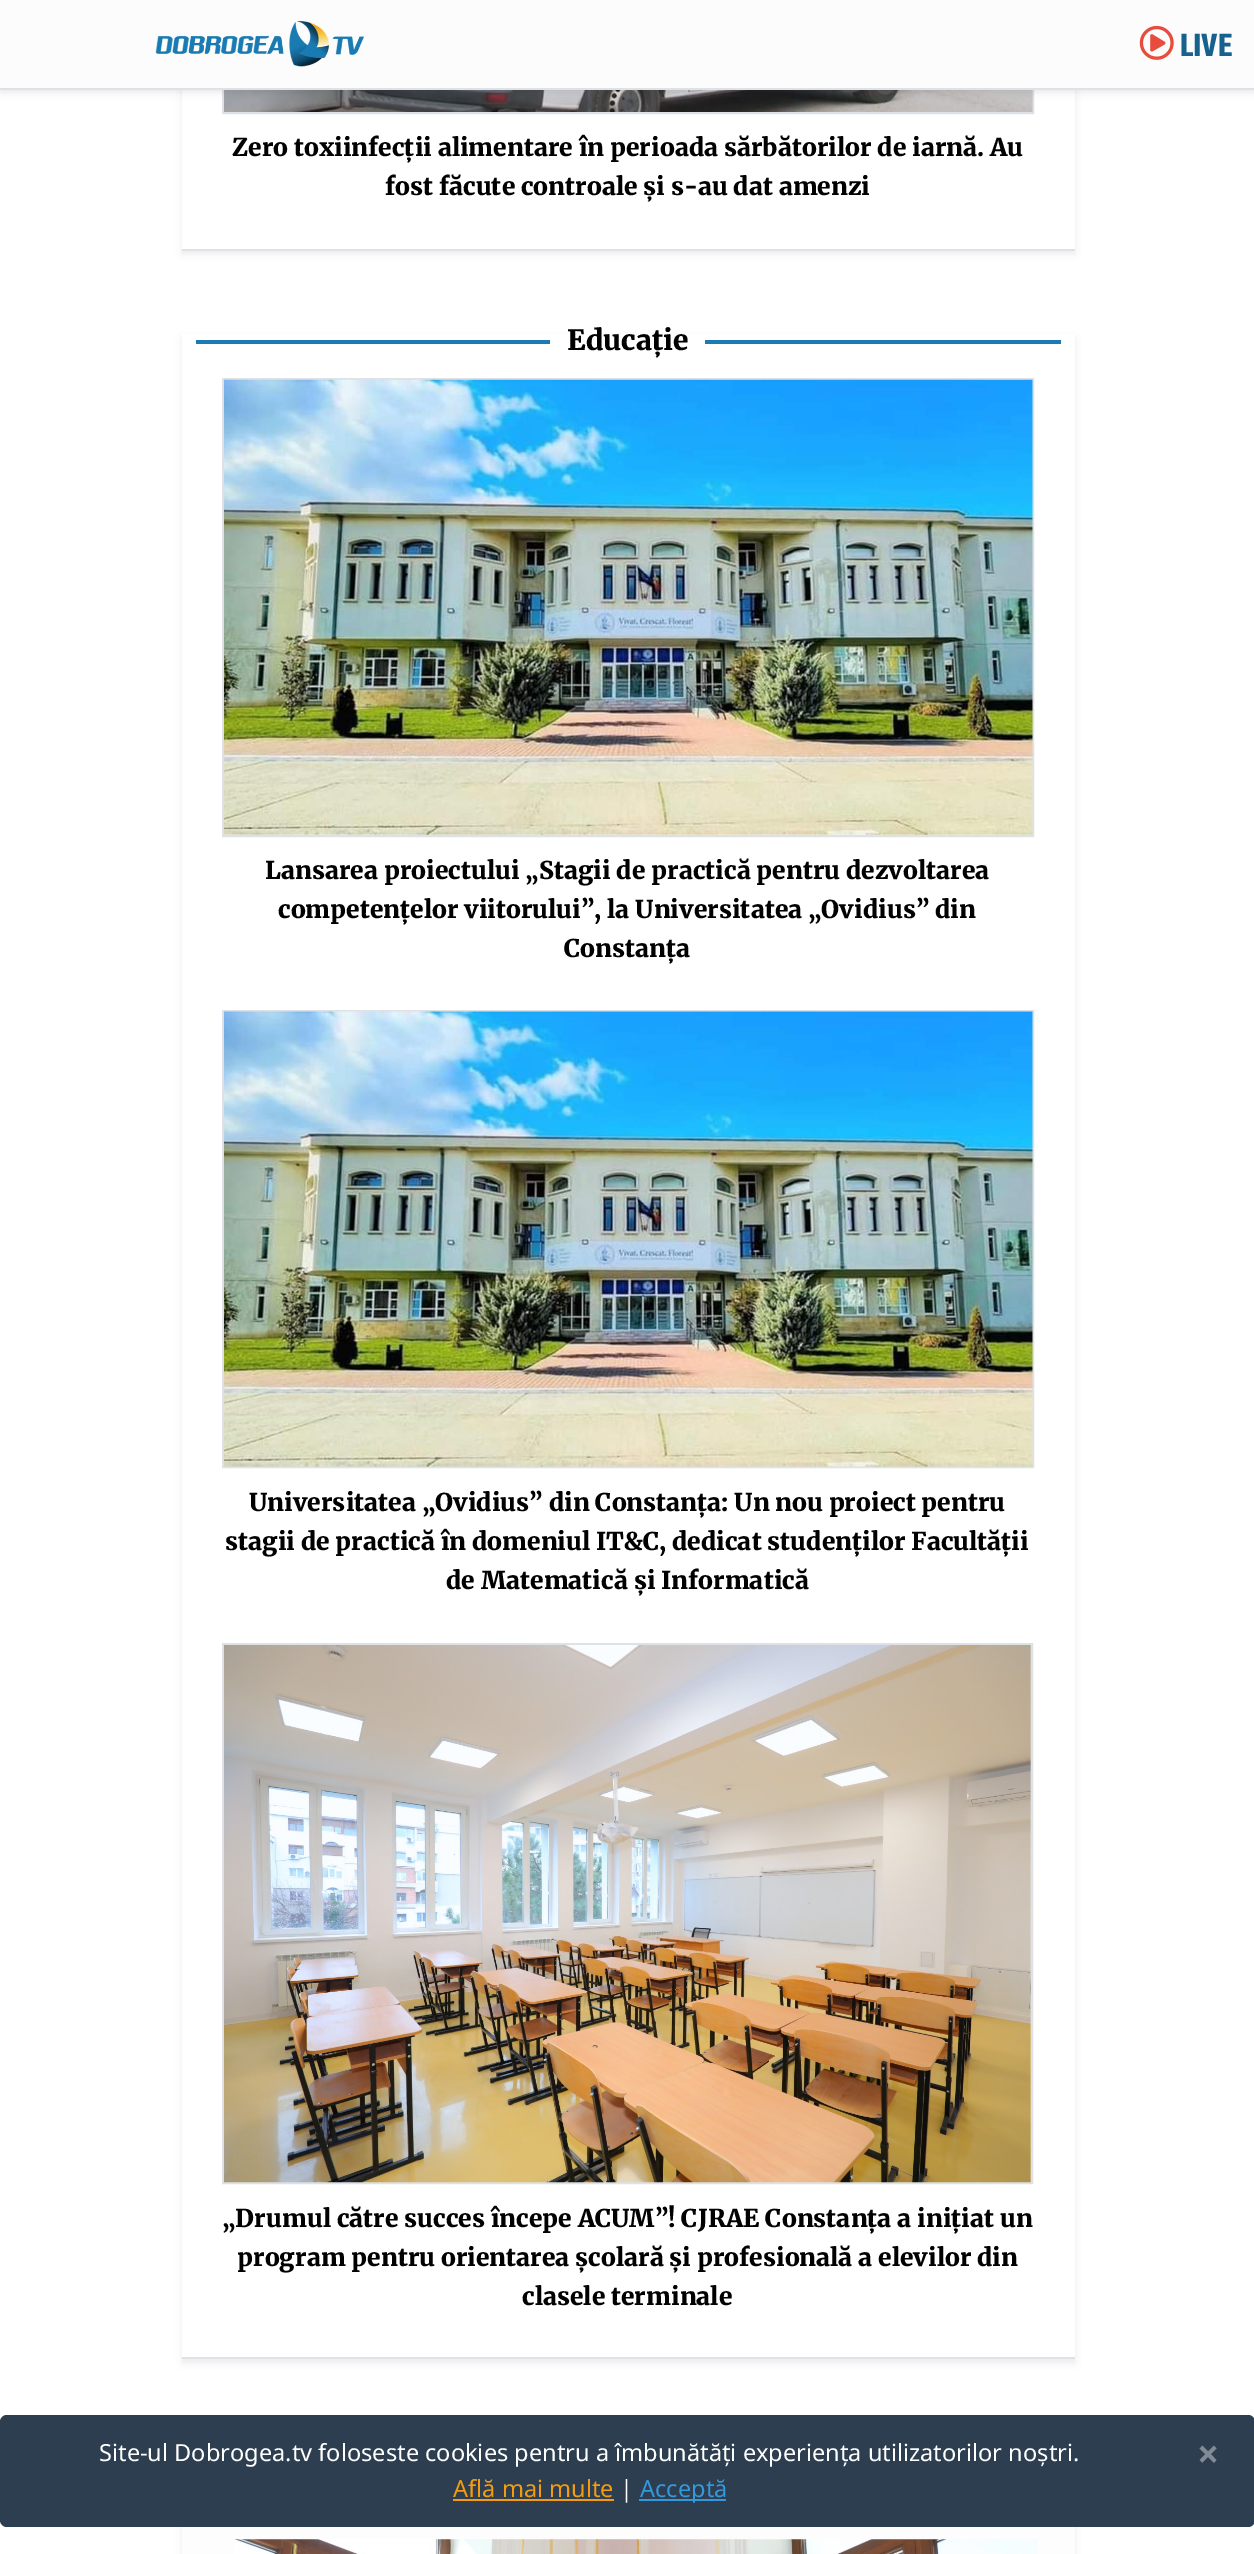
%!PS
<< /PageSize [1254 2554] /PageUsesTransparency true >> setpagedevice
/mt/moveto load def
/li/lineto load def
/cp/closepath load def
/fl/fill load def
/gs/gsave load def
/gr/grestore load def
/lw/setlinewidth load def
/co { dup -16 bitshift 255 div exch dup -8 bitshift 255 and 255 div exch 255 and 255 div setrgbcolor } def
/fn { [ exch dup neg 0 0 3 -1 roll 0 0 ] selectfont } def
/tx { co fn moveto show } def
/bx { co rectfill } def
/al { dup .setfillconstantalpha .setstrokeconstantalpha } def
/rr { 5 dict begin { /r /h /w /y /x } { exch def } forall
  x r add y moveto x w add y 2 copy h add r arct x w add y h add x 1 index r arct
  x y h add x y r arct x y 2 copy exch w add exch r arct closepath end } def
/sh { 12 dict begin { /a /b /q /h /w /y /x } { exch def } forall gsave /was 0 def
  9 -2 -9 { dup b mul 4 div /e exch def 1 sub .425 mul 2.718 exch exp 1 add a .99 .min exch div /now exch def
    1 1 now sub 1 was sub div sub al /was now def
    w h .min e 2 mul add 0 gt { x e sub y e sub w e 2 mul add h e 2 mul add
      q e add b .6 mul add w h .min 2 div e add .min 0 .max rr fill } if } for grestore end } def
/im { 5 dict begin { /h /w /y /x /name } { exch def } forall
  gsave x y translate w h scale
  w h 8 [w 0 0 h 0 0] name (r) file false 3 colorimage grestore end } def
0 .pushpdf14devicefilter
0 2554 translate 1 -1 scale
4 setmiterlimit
0 0 1254 2554 16#FFFFFF bx
gs
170 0 mt 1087 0 li 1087 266 li 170 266 li cp 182 -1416 mt 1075 -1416 li 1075 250 li 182 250 li cp eoclip newpath
16#000000 co
182 -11 893 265 0 3.5 .07 sh
gr
16#DEE2E6 co
2 lw
223 -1 810 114 rectstroke
(media/3.raw) 224 90 809 22 im
16#000000 co
0 4 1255 89 0 3.5 .07 sh
0 0 1254 88 16#FCFCFC bx
0 88 1254 2 16#DEE2E6 bx
(media/1.raw) 155 21 210 46 im
(media/2.raw) 1139 25 35 35 im
182 249 893 2 16#DEE2E6 bx
gs
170 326 mt 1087 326 li 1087 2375 li 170 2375 li cp 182 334 mt 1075 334 li 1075 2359 li 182 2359 li cp eoclip newpath
16#000000 co
182 338 893 2025 0 3.5 .07 sh
gr
182 2357 893 2 16#DEE2E6 bx
196 340 354 4 16#1B7BB3 bx
705 340 356 4 16#1B7BB3 bx
16#DEE2E6 co
223 379 810 457 rectstroke
(media/4.raw) 224 379 809 456 im
223 1011 810 456 rectstroke
(media/5.raw) 224 1011 809 456 im
223 1644 809 539 rectstroke
(media/6.raw) 224 1645 807 538 im
16#000000 co
182 2447 893 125 7 3.5 .07 sh
gs 182 2527 mt 1075 2527 li 1075 2554 li 182 2554 li cp clip newpath
<< /ShadingType 2 /ColorSpace /DeviceRGB /Coords [714 2424 542 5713] /Extend [true true] /Function << /FunctionType 3 /Domain [0 1] /Functions [<< /FunctionType 2 /Domain [0 1] /C0 [1 1 1] /C1 [.922 .922 .922] /N 1 >> << /FunctionType 2 /Domain [0 1] /C0 [.922 .922 .922] /C1 [1 1 1] /N 1 >>] /Bounds [.43] /Encode [0 1 0 1] >> >> shfill gr
(media/7.raw) 234 2539 804 15 im
16#2C3E50 co
0 2415 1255 112 7 rr fl
453 2499 161 2 16#F39C12 bx
639 2499 87 2 16#3498DB bx
(LIVE) 1180 56 /Teko-SemiBold 35 16#16618D tx
(Zero toxiinfecții alimentare în perioada sărbătorilor de iarnă. Au) 232 156 /Merriweather-Black 24.5 16#000000 tx
(fost făcute controale și s-au dat amenzi) 385 195 /Merriweather-Black 24.5 16#000000 tx
(Educație) 567 350 /Merriweather-Black 28 16#000000 tx
(Lansarea proiectului „Stagii de practică pentru dezvoltarea) 265 879 /Merriweather-Black 24.5 16#000000 tx
(competențelor viitorului”, la Universitatea „Ovidius” din) 278 918 /Merriweather-Black 24.5 16#000000 tx
(Constanța) 564 957 /Merriweather-Black 24.5 16#000000 tx
(Universitatea „Ovidius” din Constanța: Un nou proiect pentru) 249 1511 /Merriweather-Black 24.5 16#000000 tx
(stagii de practică în domeniul IT&C, dedicat studenților Facultății) 225 1550 /Merriweather-Black 24.5 16#000000 tx
(de Matematică și Informatică) 446 1589 /Merriweather-Black 24.5 16#000000 tx
(„Drumul către succes începe ACUM”! CJRAE Constanța a inițiat un) 222 2227 /Merriweather-Black 24.5 16#000000 tx
(program pentru orientarea școlară și profesională a elevilor din) 237 2266 /Merriweather-Black 24.5 16#000000 tx
(clasele terminale) 522 2305 /Merriweather-Black 24.5 16#000000 tx
(Site-ul Dobrogea.tv foloseste cookies pentru a îmbunătăți experiența utilizatorilor noștri.) 99 2461 /NotoSans-Regular 23.6 16#FFFFFF tx
(Află mai multe) 453 2497 /NotoSans-Regular 23.6 16#F39C12 tx
(|) 620 2497 /NotoSans-Regular 23.6 16#FFFFFF tx
(Acceptă) 640 2497 /NotoSans-Regular 23.6 16#3498DB tx
(×) 1197 2468 /NotoSans-Bold 39 16#808B96 tx
.poppdf14devicefilter showpage
